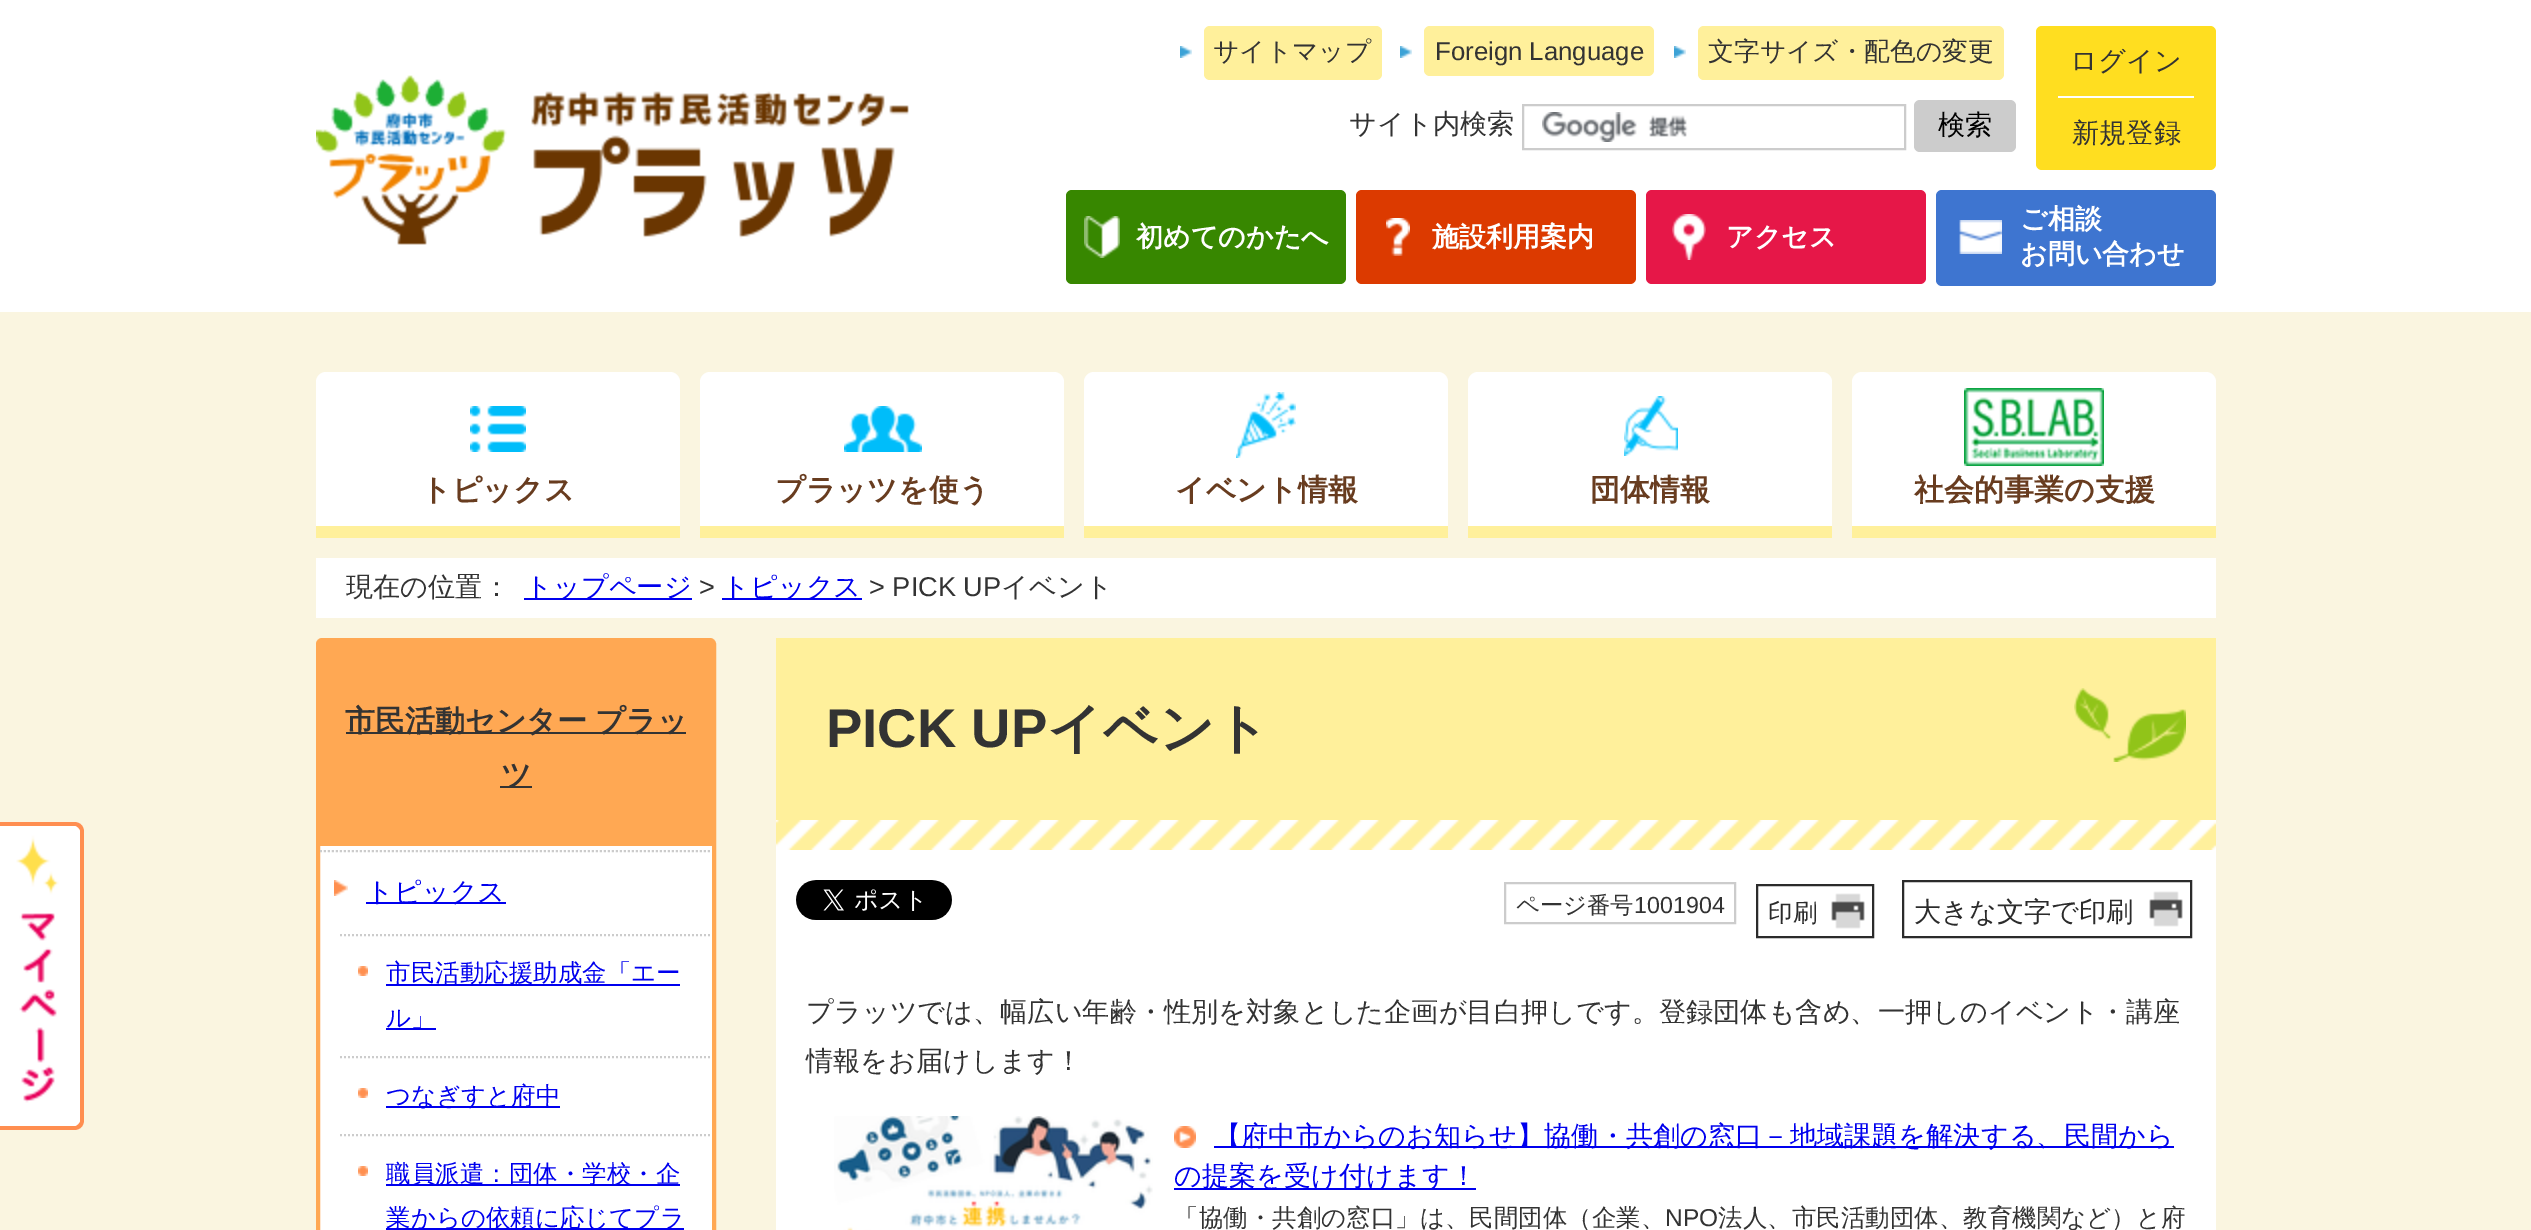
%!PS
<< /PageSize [2531 1230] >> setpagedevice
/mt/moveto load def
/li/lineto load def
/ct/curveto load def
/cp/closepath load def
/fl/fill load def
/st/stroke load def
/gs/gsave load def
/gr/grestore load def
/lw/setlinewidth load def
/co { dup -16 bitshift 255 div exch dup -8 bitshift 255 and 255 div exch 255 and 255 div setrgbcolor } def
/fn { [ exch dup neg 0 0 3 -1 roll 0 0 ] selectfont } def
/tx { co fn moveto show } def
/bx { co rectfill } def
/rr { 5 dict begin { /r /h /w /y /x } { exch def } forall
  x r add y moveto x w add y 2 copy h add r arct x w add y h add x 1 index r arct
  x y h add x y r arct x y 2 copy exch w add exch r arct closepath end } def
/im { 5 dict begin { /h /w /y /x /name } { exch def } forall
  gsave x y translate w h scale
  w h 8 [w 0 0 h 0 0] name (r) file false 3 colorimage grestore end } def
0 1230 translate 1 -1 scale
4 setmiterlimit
0 0 2531 1230 16#FAF5E0 bx
0 0 2531 312 16#FFFFFF bx
(media/1.raw) 316 75 593 170 im
(media/2.raw) 1180 46 12 12 im
16#FFF09B co
1204 26 178 54 6 rr fl
(media/2.raw) 1400 46 12 12 im
1424 26 230 50 6 rr fl
(media/2.raw) 1674 46 12 12 im
1698 26 306 54 6 rr fl
16#FFDE20 co
2036 26 180 144 6 rr fl
2058 96 136 2 16#FFFFFF bx
(media/3.raw) 1542 112 146 30 im
16#CCCCCC co
2 lw
1523 105 382 44 rectstroke
1914 100 102 52 6 rr fl
16#378700 co
1066 190 280 94 6 rr fl
(media/4.raw) 1084 216 36 42 im
16#DC3A00 co
1356 190 280 94 6 rr fl
(media/5.raw) 1386 218 24 38 im
16#E61748 co
1646 190 280 94 6 rr fl
(media/6.raw) 1672 214 34 46 im
16#3E75D0 co
1936 190 280 96 6 rr fl
(media/7.raw) 1959 220 43 34 im
16#FFFFFF co
326 372 mt 670 372 li 675.5 372 680 376.5 680 382 ct 680 538 li 316 538 li 316 382 li 316 376.5 320.5 372 326 372 ct cp fl
(media/8.raw) 470 406 56 46 im
316 526 364 12 16#FFF09B bx
16#FFFFFF co
710 372 mt 1054 372 li 1059.5 372 1064 376.5 1064 382 ct 1064 538 li 700 538 li 700 382 li 700 376.5 704.5 372 710 372 ct cp fl
(media/9.raw) 844 406 78 46 im
700 526 364 12 16#FFF09B bx
16#FFFFFF co
1094 372 mt 1438 372 li 1443.5 372 1448 376.5 1448 382 ct 1448 538 li 1084 538 li 1084 382 li 1084 376.5 1088.5 372 1094 372 ct cp fl
(media/10.raw) 1236 392 60 66 im
1084 526 364 12 16#FFF09B bx
16#FFFFFF co
1478 372 mt 1822 372 li 1827.5 372 1832 376.5 1832 382 ct 1832 538 li 1468 538 li 1468 382 li 1468 376.5 1472.5 372 1478 372 ct cp fl
(media/11.raw) 1624 396 54 60 im
1468 526 364 12 16#FFF09B bx
16#FFFFFF co
1862 372 mt 2206 372 li 2211.5 372 2216 376.5 2216 382 ct 2216 538 li 1852 538 li 1852 382 li 1852 376.5 1856.5 372 1862 372 ct cp fl
(media/12.raw) 1964 388 140 78 im
1852 526 364 12 16#FFF09B bx
316 558 1900 60 16#FFFFFF bx
524 598 168 2 16#0000EE bx
722 598 140 2 16#0000EE bx
16#FFFFFF co
0 822 mt 74 822 li 79.5 822 84 826.5 84 832 ct 84 1120 li 84 1125.5 79.5 1130 74 1130 ct 0 1130 li cp fl
16#FF8E50 co
0 822 mt 74 822 li 80 822 84 826 84 832 ct 84 1120 li 84 1126 80 1130 74 1130 ct 0 1130 li cp 0 826 mt 74 826 li 77 826 80 829 80 832 ct 80 1120 li 80 1123 77 1126 74 1126 ct 0 1126 li cp eofill
(media/13.raw) 16 826 64 300 im
16#FFFFFF co
322 640 mt 710 640 li 712 640 714 642 714 644 ct 714 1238 li 318 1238 li 318 644 li 318 642 320 640 322 640 ct cp gs fl gr
16#FFA853 co
4 lw
st
320 642 392 204 16#FFA853 bx
346 732 340 2 16#333333 bx
500 786 32 2 16#333333 bx
(media/14.raw) 334 880 14 16 im
16#CCCCCC co
2 lw
[2 2] 0 setdash
320 851 mt 712 851 li st
366 902 140 2 16#0000EE bx
(media/15.raw) 358 966 10 10 im
16#CCCCCC co
340 935 mt 712 935 li st
386 984 294 2 16#0000EE bx
386 1028 50 2 16#0000EE bx
(media/15.raw) 358 1088 10 10 im
16#CCCCCC co
340 1057 mt 712 1057 li st
386 1106 174 2 16#0000EE bx
(media/15.raw) 358 1166 10 10 im
16#CCCCCC co
340 1135 mt 712 1135 li st
386 1184 294 2 16#0000EE bx
386 1228 298 2 16#0000EE bx
776 850 1440 380 16#FFFFFF bx
776 638 1440 182 16#FFF09B bx
(media/16.raw) 776 688 1440 162 im
(media/17.raw) 796 880 156 40 im
16#CCCCCC co
[] 0 setdash
1505 883 230 40 rectstroke
(media/18.raw) 1831 893 34 36 im
16#2B2B2B co
1757 885 116 52 rectstroke
(media/18.raw) 2149 891 34 36 im
1903 881 288 56 rectstroke
(media/19.raw) 834 1116 319 114 im
(media/20.raw) 1174 1126 22 22 im
1214 1146 960 2 16#0000EE bx
1174 1188 302 2 16#0000EE bx
(サイトマップ) 1213 60 /WenQuanYiZenHei-Medium 25.75 16#333333 tx
(Foreign Language) 1435 60 /LiberationSans-Regular 25.75 16#333333 tx
(文字サイズ・配色の変更) 1708 60 /WenQuanYiZenHei-Medium 25.75 16#333333 tx
(ログイン) 2070 70 /WenQuanYiZenHei-Medium 27.2 16#333333 tx
(新規登録) 2072 142 /WenQuanYiZenHei-Medium 27.2 16#333333 tx
(サイト内検索) 1349 133 /WenQuanYiZenHei-Medium 27.2 16#333333 tx
(検索) 1938 134 /WenQuanYiZenHei-Medium 27.2 16#000000 tx
(初めてのかたへ) 1136 246 /WenQuanYiZenHei-Bold 27 16#FFFFFF tx
(施設利用案内) 1432 246 /WenQuanYiZenHei-Bold 27 16#FFFFFF tx
(アクセス) 1726 246 /WenQuanYiZenHei-Bold 27 16#FFFFFF tx
(ご相談) 2020 228 /WenQuanYiZenHei-Bold 27 16#FFFFFF tx
(お問い合わせ) 2020 263 /WenQuanYiZenHei-Bold 27 16#FFFFFF tx
(トピックス) 421 500 /WenQuanYiZenHei-Bold 30 16#683C1F tx
(プラッツを使う) 775 500 /WenQuanYiZenHei-Bold 30 16#683C1F tx
(イベント情報) 1175 500 /WenQuanYiZenHei-Bold 30 16#683C1F tx
(団体情報) 1590 500 /WenQuanYiZenHei-Bold 30 16#683C1F tx
(社会的事業の支援) 1914 500 /WenQuanYiZenHei-Bold 30 16#683C1F tx
(現在の位置：) 346 596 /WenQuanYiZenHei-Medium 27.2 16#333333 tx
(トップページ) 525 596 /WenQuanYiZenHei-Medium 27.2 16#0000EE tx
(>) 699 596 /LiberationSans-Regular 27.2 16#333333 tx
(トピックス) 722 596 /WenQuanYiZenHei-Medium 27.2 16#0000EE tx
(> PICK UP) 869 596 /LiberationSans-Regular 27.2 16#333333 tx
(イベント) 1001 596 /WenQuanYiZenHei-Medium 27.2 16#333333 tx
/WenQuanYiZenHei-Bold 30 fn
345 731 mt -1 0 32 (市民活動センター プラッ) widthshow
(ツ) 501 785 /WenQuanYiZenHei-Bold 30 16#333333 tx
(トピックス) 366 901 /WenQuanYiZenHei-Medium 27.2 16#0000EE tx
(市民活動応援助成金「エー) 386 981 /WenQuanYiZenHei-Medium 24.5 16#0000EE tx
(ル」) 386 1026 /WenQuanYiZenHei-Medium 24.5 16#0000EE tx
(つなぎすと府中) 386 1104 /WenQuanYiZenHei-Medium 24.5 16#0000EE tx
(職員派遣：団体・学校・企) 386 1182 /WenQuanYiZenHei-Medium 24.5 16#0000EE tx
(業からの依頼に応じてプラ) 386 1226 /WenQuanYiZenHei-Medium 24.5 16#0000EE tx
(PICK UP) 826 747 /LiberationSans-Bold 54.5 16#333333 tx
(イベント) 1047 747 /WenQuanYiZenHei-Bold 54.5 16#333333 tx
(ページ番号) 1516 913 /WenQuanYiZenHei-Medium 23.25 16#333333 tx
(1001904) 1634 913 /LiberationSans-Regular 23.25 16#333333 tx
(印刷) 1768 921 /WenQuanYiZenHei-Medium 24.5 16#2B2B2B tx
(大きな文字で印刷) 1914 921 /WenQuanYiZenHei-Medium 27.2 16#2B2B2B tx
(プラッツでは、幅広い年齢・性別を対象とした企画が目白押しです。登録団体も含め、一押しのイベント・講座) 806 1021 /WenQuanYiZenHei-Medium 27.2 16#333333 tx
(情報をお届けします！) 806 1070 /WenQuanYiZenHei-Medium 27.2 16#333333 tx
(【府中市からのお知らせ】協働・共創の窓口－地域課題を解決する、民間から) 1214 1145 /WenQuanYiZenHei-Medium 27.2 16#0000EE tx
(の提案を受け付けます！) 1174 1185 /WenQuanYiZenHei-Medium 27.2 16#0000EE tx
(「協働・共創の窓口」は、民間団体（企業、) 1174 1226 /WenQuanYiZenHei-Medium 24.5 16#333333 tx
(NPO) 1665 1226 /LiberationSans-Regular 24.5 16#333333 tx
(法人、市民活動団体、教育機関など）と府) 1718 1226 /WenQuanYiZenHei-Medium 24.5 16#333333 tx
showpage
